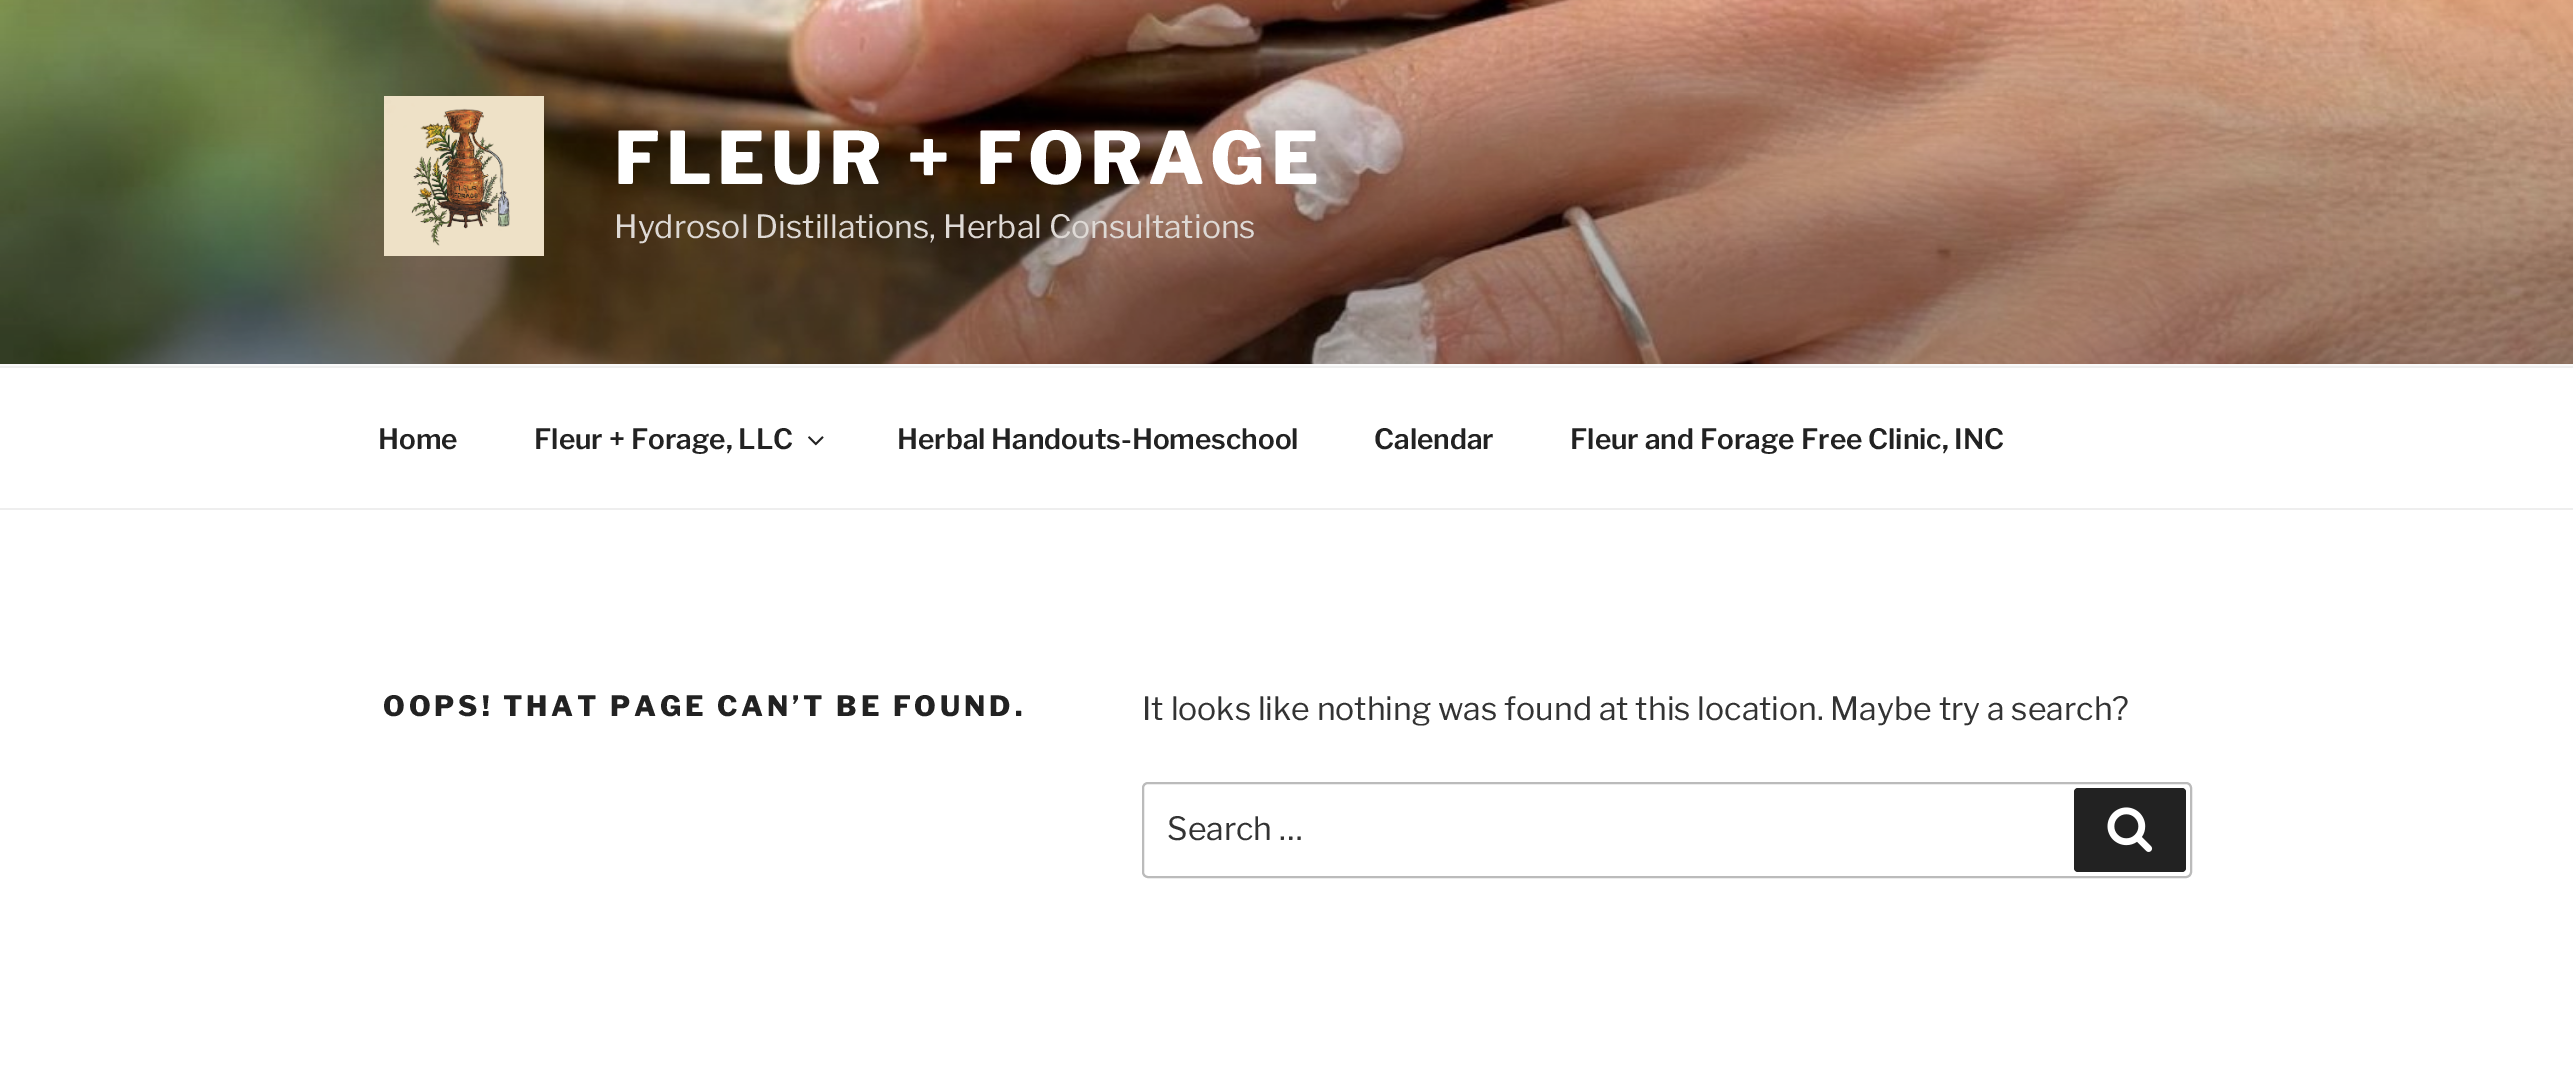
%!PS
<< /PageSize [2573 1090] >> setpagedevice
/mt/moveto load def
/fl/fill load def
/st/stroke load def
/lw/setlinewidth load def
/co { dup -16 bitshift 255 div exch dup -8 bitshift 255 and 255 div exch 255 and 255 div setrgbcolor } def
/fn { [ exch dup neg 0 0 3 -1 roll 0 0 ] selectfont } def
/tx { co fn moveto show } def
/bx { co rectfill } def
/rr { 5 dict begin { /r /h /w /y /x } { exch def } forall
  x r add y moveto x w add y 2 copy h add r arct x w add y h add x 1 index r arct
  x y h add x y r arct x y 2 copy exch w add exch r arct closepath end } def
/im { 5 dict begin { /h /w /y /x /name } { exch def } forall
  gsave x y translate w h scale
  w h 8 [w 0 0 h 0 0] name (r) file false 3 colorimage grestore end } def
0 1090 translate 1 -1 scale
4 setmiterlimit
0 0 2573 1090 16#FFFFFF bx
0 364 2573 2 16#FAFAFA bx
(media/1.raw) 0 0 2573 364 im
(media/2.raw) 384 96 160 160 im
0 366 2573 2 16#EEEEEE bx
0 508 2573 2 16#EEEEEE bx
(media/3.raw) 808 436 16 10 im
16#BBBBBB co
2 lw
1143 783 1048 94 5 rr st
16#222222 co
2074 788 112 84 4 rr fl
(media/4.raw) 2107 807 46 45 im
/LibreFranklin-Thin 72 fn
16#FFFFFF co
614 184 mt 5.75 0 (FLEUR + FORAGE) ashow
(Hydrosol Distillations, Herbal Consultations) 614 238 /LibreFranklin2-Thin 32 16#DED9D5 tx
(Home) 378 449 /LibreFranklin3-Thin 28 16#222222 tx
(Fleur + Forage, LLC) 534 449 /LibreFranklin3-Thin 28 16#222222 tx
(Herbal Handouts-Homeschool) 897 449 /LibreFranklin3-Thin 28 16#222222 tx
(Calendar) 1374 449 /LibreFranklin3-Thin 28 16#222222 tx
(Fleur and Forage Free Clinic, INC) 1570 449 /LibreFranklin3-Thin 28 16#222222 tx
/LibreFranklin-Thin 28 fn
383 716 mt 3.9 0 (OOPS! THAT PAGE CAN’T BE FOUND.) ashow
(It looks like nothing was found at this location. Maybe try a search?) 1142 720 /LibreFranklin2-Thin 32 16#333333 tx
(Search …) 1167 840 /LibreFranklin2-Thin 32 16#333333 tx
showpage
